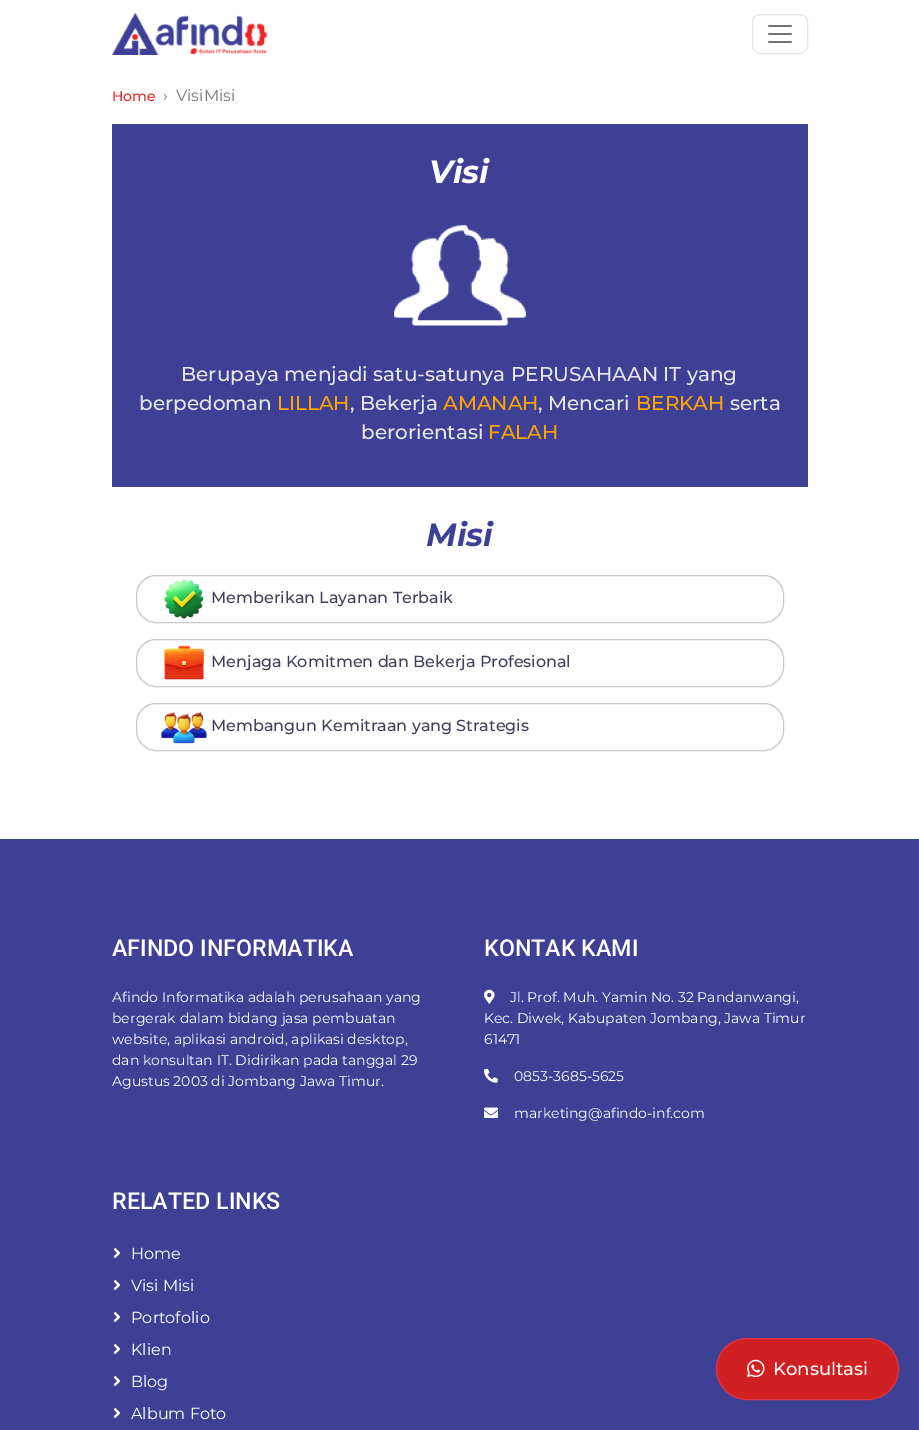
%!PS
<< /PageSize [919 1430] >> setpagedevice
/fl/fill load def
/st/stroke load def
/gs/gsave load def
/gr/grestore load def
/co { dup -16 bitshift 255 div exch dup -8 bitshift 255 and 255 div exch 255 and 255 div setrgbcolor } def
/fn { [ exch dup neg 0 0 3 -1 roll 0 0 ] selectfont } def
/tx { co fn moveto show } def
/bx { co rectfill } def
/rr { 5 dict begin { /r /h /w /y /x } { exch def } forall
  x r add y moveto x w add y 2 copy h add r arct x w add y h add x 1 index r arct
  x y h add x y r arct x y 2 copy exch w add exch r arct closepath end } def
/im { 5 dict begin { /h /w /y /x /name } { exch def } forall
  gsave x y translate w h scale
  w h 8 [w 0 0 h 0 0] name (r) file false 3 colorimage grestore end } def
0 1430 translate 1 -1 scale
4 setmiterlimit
0 0 919 1430 16#FFFFFF bx
(media/1.raw) 111 13 157 42 im
16#E6E6E6 co
752.5 14.5 55 39 7.5 rr st
(media/2.raw) 768 25 24 18 im
112 124 696 363 16#3D4094 bx
(media/3.raw) 394 225 132 101 im
16#C9C9C9 co
136.5 575.5 647 47 19.5 rr st
(media/4.raw) 164 579 40 40 im
136.5 639.5 647 47 19.5 rr st
(media/5.raw) 164 645 41 35 im
136.5 703.5 647 47 19.5 rr st
(media/6.raw) 161 712 46 32 im
0 839 919 591 16#3D4094 bx
(media/7.raw) 484 989 11 15 im
(media/8.raw) 484 1068 14 15 im
(media/9.raw) 484 1107 14 11 im
(media/10.raw) 113 1248 8 10 im
(media/10.raw) 113 1280 8 10 im
(media/10.raw) 113 1312 8 10 im
(media/10.raw) 113 1344 8 10 im
(media/10.raw) 113 1376 8 10 im
(media/10.raw) 113 1408 8 10 im
16#D12022 co
716.5 1338.5 182 61 30.5 rr gs fl gr
16#DC3545 co
st
(media/11.raw) 747 1359 18 19 im
(Home) 112 101 /Montserrat-Medium 14 16#EF2325 tx
(›) 163 101 /Montserrat-Regular 16 16#6C757D tx
(VisiMisi) 176 101 /Montserrat-Regular 16 16#7A7A7A tx
(Visi) 429 183 /Montserrat-BoldItalic 32 16#FFFFFF tx
(Berupaya menjadi satu-satunya PERUSAHAAN IT yang) 181 381 /Montserrat-Medium 20 16#E6E4E5 tx
(berpedoman) 139 410 /Montserrat-Medium 20 16#E6E4E5 tx
(LILLAH) 277 410 /Montserrat-Medium 20 16#FFA300 tx
(, Bekerja) 350 410 /Montserrat-Medium 20 16#E6E4E5 tx
(AMANAH) 443 410 /Montserrat-Medium 20 16#FFA300 tx
(, Mencari) 538 410 /Montserrat-Medium 20 16#E6E4E5 tx
(BERKAH) 636 410 /Montserrat-Medium 20 16#FFA300 tx
(serta) 730 410 /Montserrat-Medium 20 16#E6E4E5 tx
(berorientasi) 361 439 /Montserrat-Medium 20 16#E6E4E5 tx
(FALAH) 488 439 /Montserrat-Medium 20 16#FFA300 tx
(Misi) 426 546 /Montserrat-BoldItalic 32 16#3D4094 tx
(Memberikan Layanan Terbaik) 211 603 /Montserrat-Medium 16 16#3F405D tx
(Menjaga Komitmen dan Bekerja Profesional) 211 667 /Montserrat-Medium 16 16#3F405D tx
(Membangun Kemitraan yang Strategis) 211 731 /Montserrat-Medium 16 16#3F405D tx
(AFINDO INFORMATIKA) 112 956 /Roboto-Medium 23.25 16#FFFFFF tx
(Afindo Informatika adalah perusahaan yang) 112 1002 /Montserrat-Regular 14 16#FFFFFF tx
(bergerak dalam bidang jasa pembuatan) 112 1023 /Montserrat-Regular 14 16#FFFFFF tx
(website, aplikasi android, aplikasi desktop,) 112 1044 /Montserrat-Regular 14 16#FFFFFF tx
(dan konsultan IT. Didirikan pada tanggal 29) 112 1065 /Montserrat-Regular 14 16#FFFFFF tx
(Agustus 2003 di Jombang Jawa Timur.) 112 1086 /Montserrat-Regular 14 16#FFFFFF tx
(KONTAK KAMI) 484 956 /Roboto-Medium 23.25 16#FFFFFF tx
(Jl. Prof. Muh. Yamin No. 32 Pandanwangi,) 510 1002 /Montserrat-Regular 14 16#FFFFFF tx
(Kec. Diwek, Kabupaten Jombang, Jawa Timur) 484 1023 /Montserrat-Regular 14 16#FFFFFF tx
(61471) 484 1044 /Montserrat-Regular 14 16#FFFFFF tx
(0853-3685-5625) 514 1081 /Montserrat-Regular 14 16#FFFFFF tx
(marketing@afindo-inf.com) 514 1118 /Montserrat-Regular 14 16#FFFFFF tx
(RELATED LINKS) 112 1209 /Roboto-Medium 23.25 16#FFFFFF tx
(Home) 131 1259 /Montserrat-Regular 16 16#FFFFFF tx
(Visi Misi) 131 1291 /Montserrat-Regular 16 16#FFFFFF tx
(Portofolio) 131 1323 /Montserrat-Regular 16 16#FFFFFF tx
(Klien) 131 1355 /Montserrat-Regular 16 16#FFFFFF tx
(Blog) 131 1387 /Montserrat-Regular 16 16#FFFFFF tx
(Album Foto) 131 1419 /Montserrat-Regular 16 16#FFFFFF tx
(Konsultasi) 773 1375 /Montserrat-Medium 18 16#FFFFFF tx
showpage
